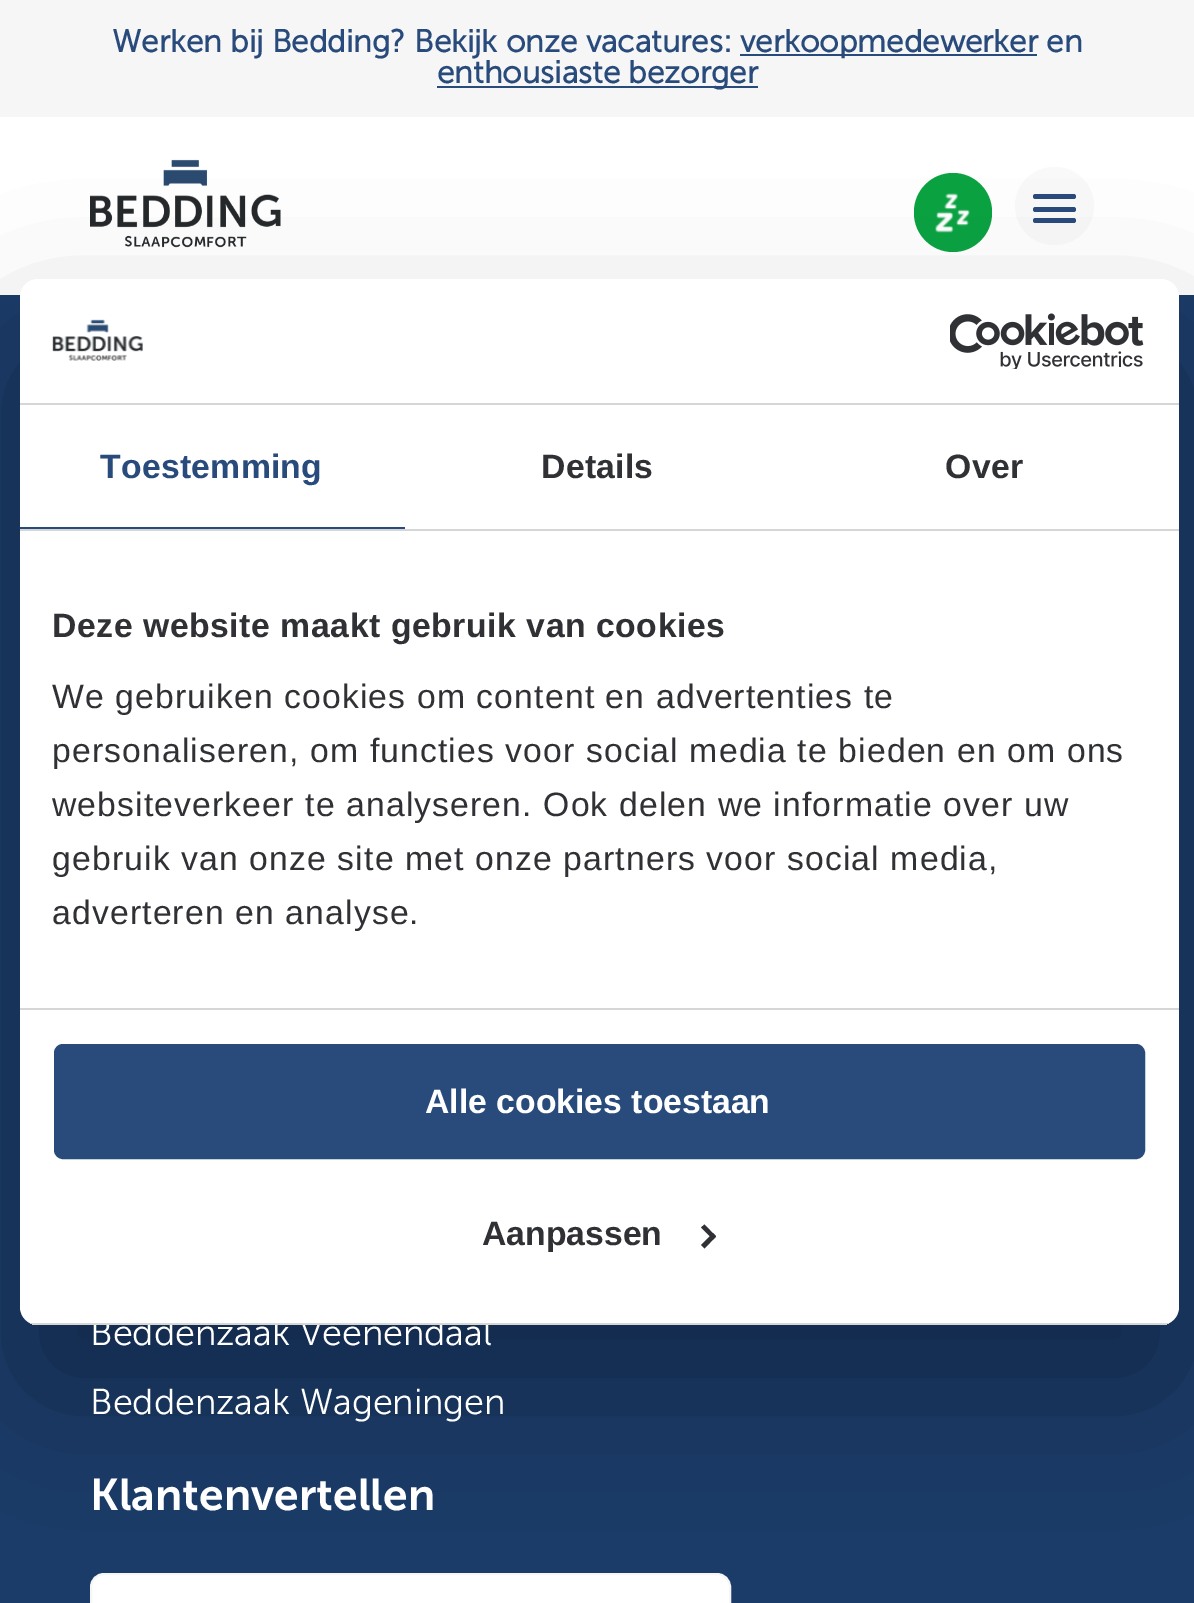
%!PS
<< /PageSize [1194 1603] /PageUsesTransparency true >> setpagedevice
/mt/moveto load def
/li/lineto load def
/cp/closepath load def
/fl/fill load def
/st/stroke load def
/gs/gsave load def
/gr/grestore load def
/lw/setlinewidth load def
/co { dup -16 bitshift 255 div exch dup -8 bitshift 255 and 255 div exch 255 and 255 div setrgbcolor } def
/fn { [ exch dup neg 0 0 3 -1 roll 0 0 ] selectfont } def
/tx { co fn moveto show } def
/bx { co rectfill } def
/al { dup .setfillconstantalpha .setstrokeconstantalpha } def
/rr { 5 dict begin { /r /h /w /y /x } { exch def } forall
  x r add y moveto x w add y 2 copy h add r arct x w add y h add x 1 index r arct
  x y h add x y r arct x y 2 copy exch w add exch r arct closepath end } def
/sh { 12 dict begin { /a /b /q /h /w /y /x } { exch def } forall gsave /was 0 def
  9 -2 -9 { dup b mul 4 div /e exch def 1 sub .425 mul 2.718 exch exp 1 add a .99 .min exch div /now exch def
    1 1 now sub 1 was sub div sub al /was now def
    w h .min e 2 mul add 0 gt { x e sub y e sub w e 2 mul add h e 2 mul add
      q e add b .6 mul add w h .min 2 div e add .min 0 .max rr fill } if } for grestore end } def
/im { 5 dict begin { /h /w /y /x /name } { exch def } forall
  gsave x y translate w h scale
  w h 8 [w 0 0 h 0 0] name (r) file false 3 colorimage grestore end } def
0 .pushpdf14devicefilter
0 1603 translate 1 -1 scale
4 setmiterlimit
0 0 1194 1603 16#1B3C69 bx
0 0 1194 117 16#F6F6F6 bx
740 54 297 2 16#294B7C bx
437 86 321 2 16#294B7C bx
0 117 1194 178 16#FFFFFF bx
(media/1.raw) 90 159 191 89 im
16#0AA242 co
914 173 78 79 39 rr fl
(media/2.raw) 935 193 35 40 im
16#F9F9F9 co
1015 167 79 78 39 rr fl
16#294B7C co
1033 207 43 5 2.5 rr fl
1033 194 43 5 2.5 rr fl
1033 218 43 5 2.5 rr fl
16#FFFFFF co
91 1574 639 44 13 rr gs fl gr
16#F6F6F6 co
2 lw
st
16#000000 co
20 351 1159 1046 18 76.5 .3 sh
16#FFFFFF co
20 279 1159 1046 18 rr fl
20 403 1159 2 16#D6D6D6 bx
(media/3.raw) 52 319 91 42 im
(media/4.raw) 950 313 194 56 im
20 529 1159 2 16#D6D6D6 bx
20 527 385 2 16#294B7B bx
20 1008 1159 2 16#D6D6D6 bx
16#294B7B co
56.5 1046.5 1086 110 6.5 rr gs fl gr
5 lw
st
16#303135 co
704.5 1224.5 mt 716 1236.5 li 713 1239.5 li 701 1227.5 li cp fl
713 1233 mt 716 1236.5 li 704.5 1248.5 li 701 1245 li cp fl
(Werken bij Bedding? Bekijk onze vacatures:) 112 52 /MuseoSans-Bold 31.5 16#294B7C tx
(verkoopmedewerker en) 740 52 /MuseoSans-Bold 31.5 16#294B7C tx
(enthousiaste bezorger) 437 83 /MuseoSans-Bold 31.5 16#294B7C tx
(Beddenzaak Veenendaal) 90 1345 /MuseoSans-Light 36 16#FFFFFF tx
(Beddenzaak Wageningen) 90 1414 /MuseoSans-Light 36 16#FFFFFF tx
(Klantenvertellen) 90 1510 /MuseoSans-SemiBold 44.5 16#FFFFFF tx
/LiberationSans-Bold 33.75 fn
16#294B7C co
100 478 mt .25 0 (Toestemming) ashow
16#303135 co
541 478 mt .25 0 (Details) ashow
945 478 mt .25 0 (Over) ashow
52 637 mt .55 0 (Deze website maakt gebruik van cookies) ashow
/LiberationSans-Regular 33.75 fn
52 708 mt 1.12 0 (We gebruiken cookies om content en advertenties te) ashow
52 762 mt 1.12 0 (personaliseren, om functies voor social media te bieden en om ons) ashow
52 816 mt 1.12 0 (websiteverkeer te analyseren. Ook delen we informatie over uw) ashow
52 870 mt 1.12 0 (gebruik van onze site met onze partners voor social media,) ashow
52 924 mt 1.12 0 (adverteren en analyse.) ashow
gs
20 279 1159 1046 18 rr clip newpath
30 1323 1139 2 16#D6D6D6 bx
gr
(Alle cookies toestaan) 425 1113 /LiberationSans-Bold 33.75 16#FFFFFF tx
(Aanpassen) 482 1245 /LiberationSans-Bold 33.75 16#303135 tx
.poppdf14devicefilter showpage
